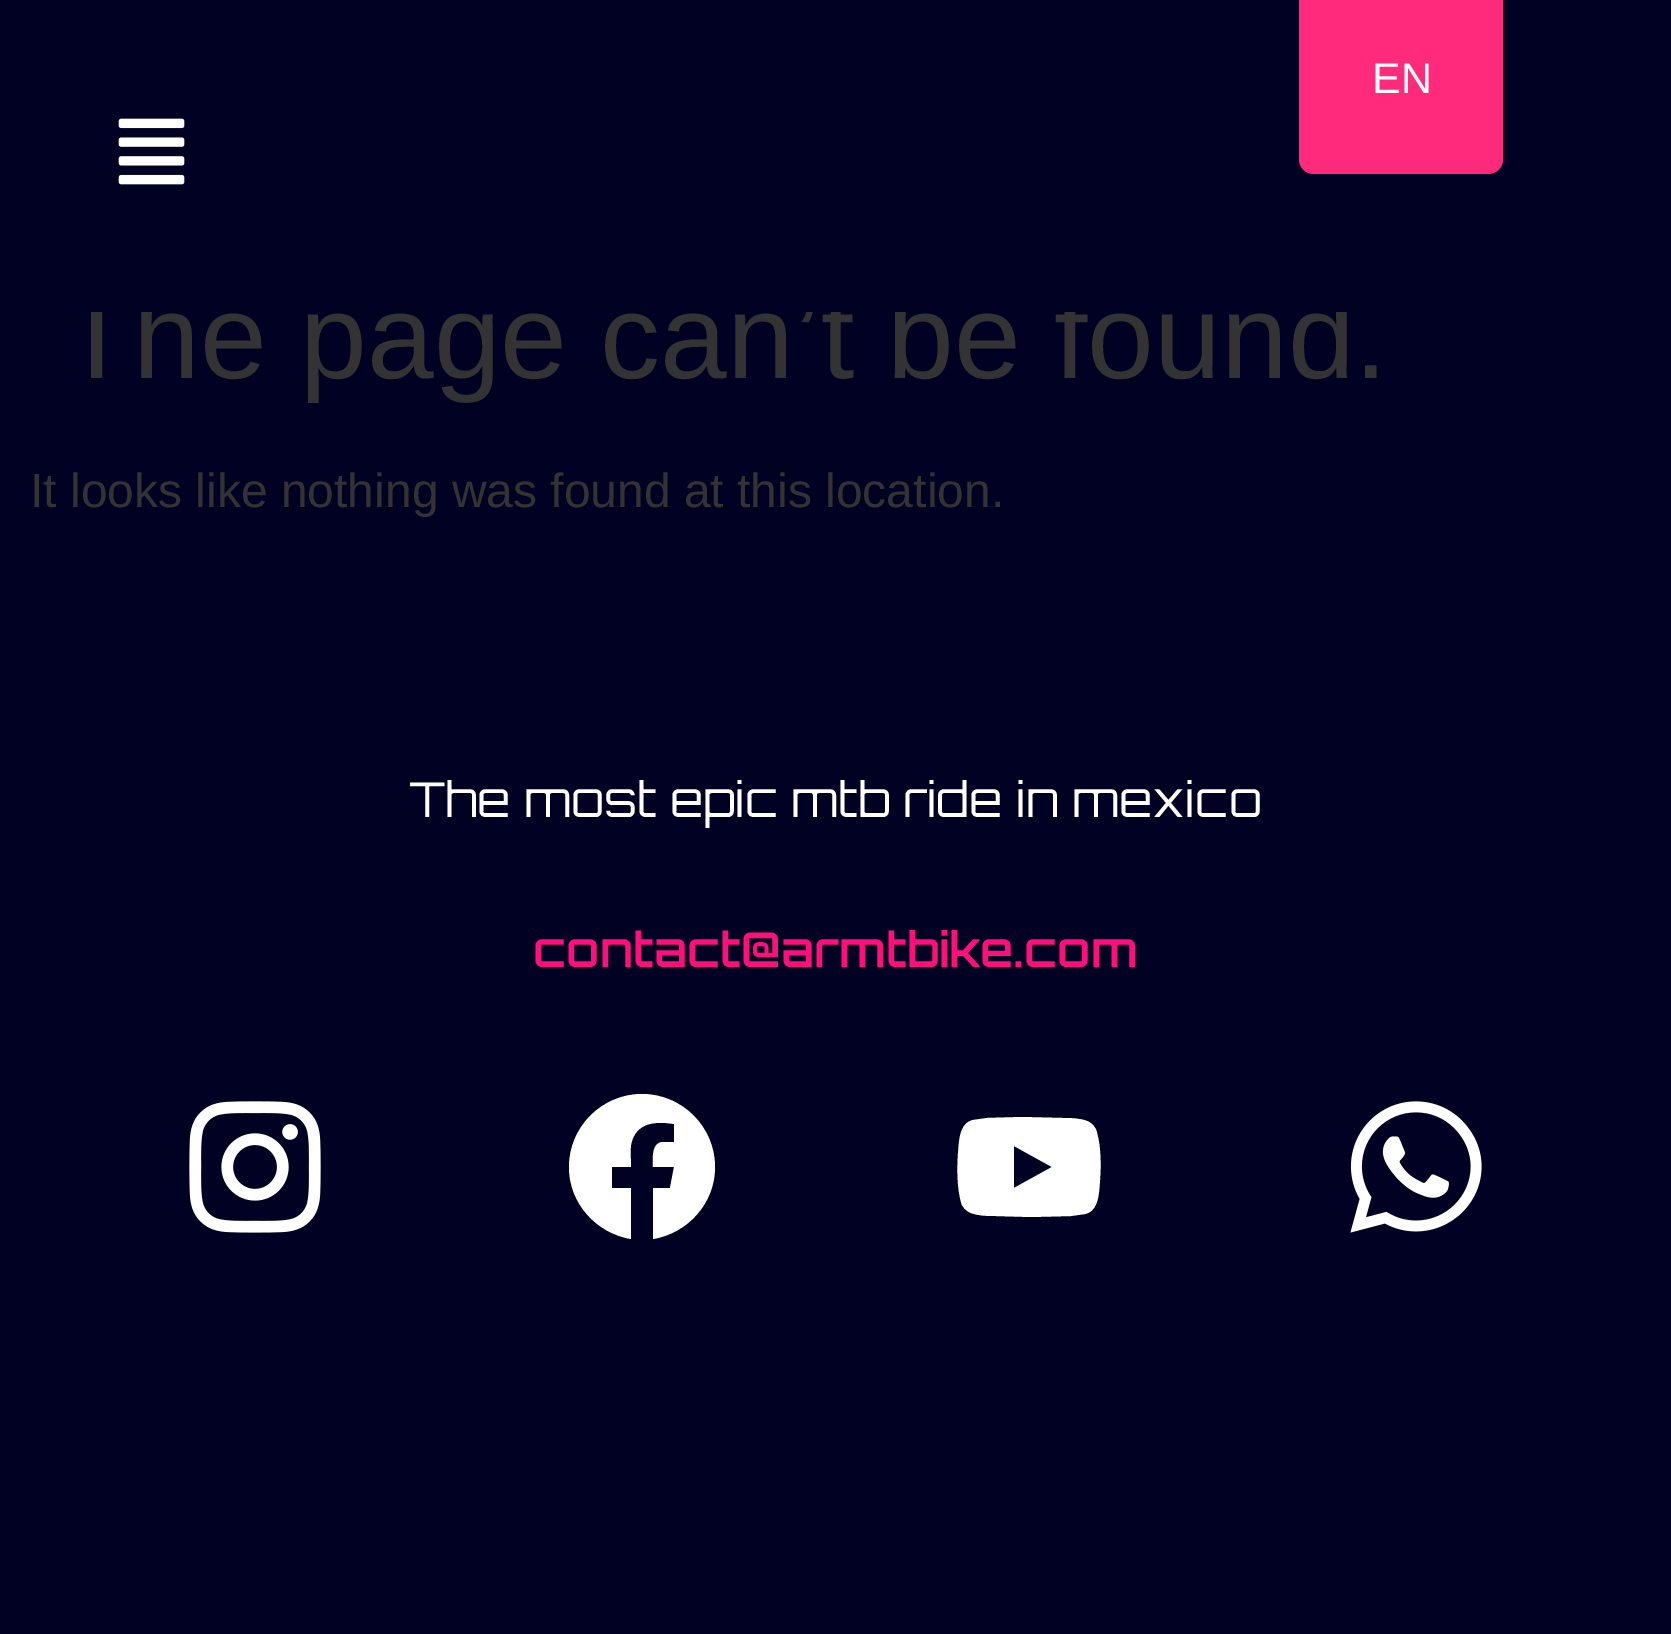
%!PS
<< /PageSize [1671 1634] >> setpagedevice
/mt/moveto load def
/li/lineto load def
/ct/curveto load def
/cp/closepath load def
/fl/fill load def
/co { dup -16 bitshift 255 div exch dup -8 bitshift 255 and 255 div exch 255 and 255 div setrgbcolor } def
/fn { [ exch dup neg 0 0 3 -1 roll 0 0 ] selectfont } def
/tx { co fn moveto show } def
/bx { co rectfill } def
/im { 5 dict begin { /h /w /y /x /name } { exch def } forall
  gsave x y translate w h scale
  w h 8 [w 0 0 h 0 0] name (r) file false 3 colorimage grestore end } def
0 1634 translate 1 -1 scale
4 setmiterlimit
0 0 1671 1634 16#000123 bx
16#FF2A7B co
1299 0 mt 1503 0 li 1503 159 li 1503 167.5 1496.5 174 1488 174 ct 1314 174 li 1305.5 174 1299 167.5 1299 159 ct cp fl
(media/1.raw) 118 118 67 67 im
(media/2.raw) 189 1101 132 132 im
16#FFFFFF co
715 1167 mt 715 1127 682 1094 642 1094 ct 602 1094 569 1127 569 1167 ct 569 1203 596 1233 631 1239 ct 631 1188 li 612 1188 li 612 1167 li 631 1167 li 631 1160 630 1152 631 1145 ct 635 1122 656 1121 674 1124 ct 674 1142 li 662 1142 li 651 1144 653 1159 653 1167 ct 674 1167 li 670 1188 li 653 1188 li 653 1239 li 688 1233 715 1203 715 1167 ct cp fl
1097 1133 mt 1096 1127 1092 1123 1087 1121 ct 1079 1118 1070 1118 1062 1118 ct 1022 1117 li 987 1118 li 973 1120 li 959 1123 959 1142 958 1154 ct 957 1169 957 1187 961 1202 ct 962 1207 966 1211 971 1213 ct 979 1216 988 1216 996 1216 ct 1031 1217 li 1071 1216 li 1085 1214 li 1099 1211 1099 1192 1100 1180 ct 1101 1165 1101 1147 1097 1133 ct cp 1014 1188 mt 1014 1146 li 1052 1167 li cp fl
(media/3.raw) 1350 1101 132 132 im
(EN) 1372 93 /LiberationSans-Regular 43 16#FFFFFF tx
(The page can’t be found.) 60 378 /LiberationSans-Regular 120 16#333333 tx
62 291 1285 21 16#000123 bx
(It looks like nothing was found at this location.) 30 507 /LiberationSans-Regular 48 16#333333 tx
(The most epic mtb ride in mexico) 409 817 /Orbitron-Regular 48 16#FFFFFF tx
(contact@armtbike.com) 533 967 /Orbitron-SemiBold 48 16#FF0F7B tx
showpage
